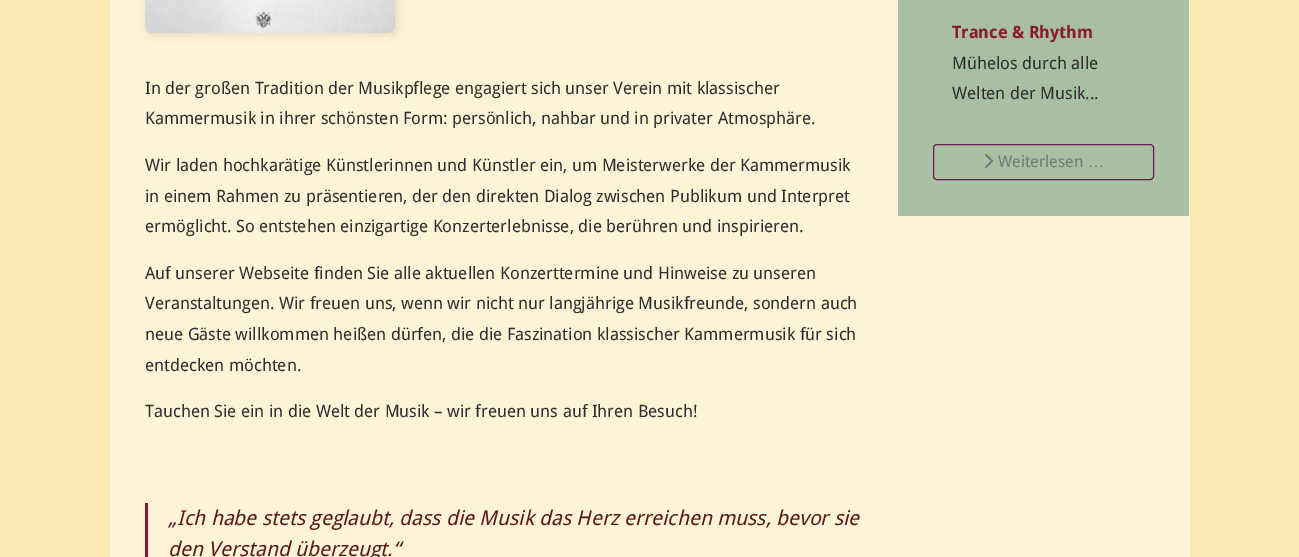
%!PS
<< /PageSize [1299 557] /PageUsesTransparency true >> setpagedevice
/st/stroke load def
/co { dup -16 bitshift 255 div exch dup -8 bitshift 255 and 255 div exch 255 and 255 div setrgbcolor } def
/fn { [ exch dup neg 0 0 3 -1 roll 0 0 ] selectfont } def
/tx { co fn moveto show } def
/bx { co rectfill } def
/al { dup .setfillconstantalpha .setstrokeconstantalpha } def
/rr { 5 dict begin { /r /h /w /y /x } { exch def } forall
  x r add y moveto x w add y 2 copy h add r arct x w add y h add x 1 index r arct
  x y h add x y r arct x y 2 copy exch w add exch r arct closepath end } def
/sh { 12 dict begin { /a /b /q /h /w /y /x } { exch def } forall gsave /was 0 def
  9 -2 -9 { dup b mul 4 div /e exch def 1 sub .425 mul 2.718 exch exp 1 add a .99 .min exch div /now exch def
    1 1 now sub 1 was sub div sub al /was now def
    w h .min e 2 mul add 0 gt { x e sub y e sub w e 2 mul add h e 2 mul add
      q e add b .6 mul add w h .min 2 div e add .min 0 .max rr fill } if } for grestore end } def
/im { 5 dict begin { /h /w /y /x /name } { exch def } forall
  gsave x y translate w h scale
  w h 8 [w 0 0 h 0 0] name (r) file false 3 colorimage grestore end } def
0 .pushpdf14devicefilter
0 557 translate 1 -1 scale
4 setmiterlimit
0 0 1299 557 16#FCE8B2 bx
110 0 1080 557 16#FDF3D7 bx
16#000000 co
147 -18 250 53 6 4 .1 sh
(media/1.raw) 145 0 250 33 im
145 503 3 54 16#8B1A2B bx
898 0 291 216 16#A8BFA1 bx
16#6A1B4D co
933.5 144.5 220 35 3.5 rr st
(media/2.raw) 985 154 8 14 im
(In der großen Tradition der Musikpflege engagiert sich unser Verein mit klassischer) 145 94 /DroidSans-Regular 17 16#2E2E2E tx
(Kammermusik in ihrer schönsten Form: persönlich, nahbar und in privater Atmosphäre.) 145 124 /DroidSans-Regular 17 16#2E2E2E tx
(Wir laden hochkarätige Künstlerinnen und Künstler ein, um Meisterwerke der Kammermusik) 145 171 /DroidSans-Regular 17 16#2E2E2E tx
(in einem Rahmen zu präsentieren, der den direkten Dialog zwischen Publikum und Interpret) 145 202 /DroidSans-Regular 17 16#2E2E2E tx
(ermöglicht. So entstehen einzigartige Konzerterlebnisse, die berühren und inspirieren.) 145 232 /DroidSans-Regular 17 16#2E2E2E tx
(Auf unserer Webseite finden Sie alle aktuellen Konzerttermine und Hinweise zu unseren) 145 279 /DroidSans-Regular 17 16#2E2E2E tx
(Veranstaltungen. Wir freuen uns, wenn wir nicht nur langjährige Musikfreunde, sondern auch) 145 309 /DroidSans-Regular 17 16#2E2E2E tx
(neue Gäste willkommen heißen dürfen, die die Faszination klassischer Kammermusik für sich) 145 340 /DroidSans-Regular 17 16#2E2E2E tx
(entdecken möchten.) 145 371 /DroidSans-Regular 17 16#2E2E2E tx
(Tauchen Sie ein in die Welt der Musik – wir freuen uns auf Ihren Besuch!) 145 417 /DroidSans-Regular 17 16#2E2E2E tx
(„Ich habe stets geglaubt, dass die Musik das Herz erreichen muss, bevor sie) 168 525 /DroidSans-Italic 20.4 16#5A1A1A tx
(den Verstand überzeugt.“) 168 556 /DroidSans-Italic 20.4 16#5A1A1A tx
(Trance & Rhythm) 952 38 /DroidSans-Bold 17 16#8B1A2B tx
(Mühelos durch alle) 952 69 /DroidSans-Regular 17 16#2E2E2E tx
(Welten der Musik...) 952 99 /DroidSans-Regular 17 16#2E2E2E tx
(Weiterlesen) 998 167 /DroidSans-Regular 16 16#777777 tx
(…) 1088 167 /LiberationSerif-Regular 16 16#777777 tx
.poppdf14devicefilter showpage
